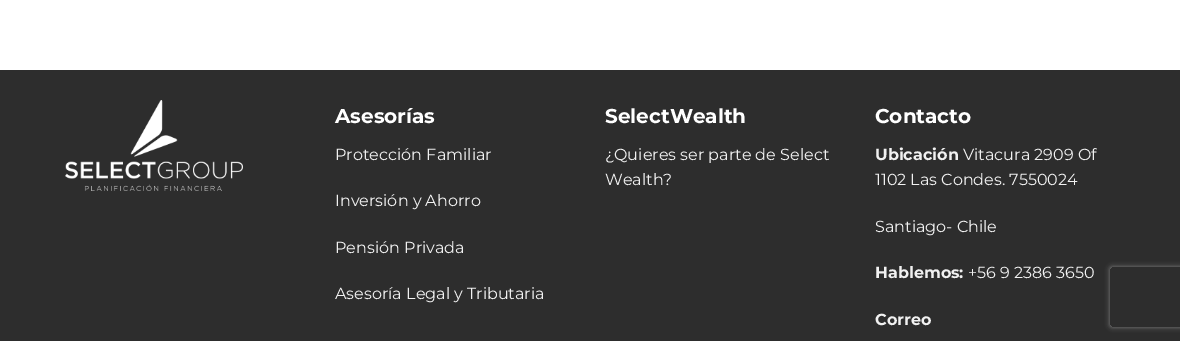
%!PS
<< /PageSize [1180 341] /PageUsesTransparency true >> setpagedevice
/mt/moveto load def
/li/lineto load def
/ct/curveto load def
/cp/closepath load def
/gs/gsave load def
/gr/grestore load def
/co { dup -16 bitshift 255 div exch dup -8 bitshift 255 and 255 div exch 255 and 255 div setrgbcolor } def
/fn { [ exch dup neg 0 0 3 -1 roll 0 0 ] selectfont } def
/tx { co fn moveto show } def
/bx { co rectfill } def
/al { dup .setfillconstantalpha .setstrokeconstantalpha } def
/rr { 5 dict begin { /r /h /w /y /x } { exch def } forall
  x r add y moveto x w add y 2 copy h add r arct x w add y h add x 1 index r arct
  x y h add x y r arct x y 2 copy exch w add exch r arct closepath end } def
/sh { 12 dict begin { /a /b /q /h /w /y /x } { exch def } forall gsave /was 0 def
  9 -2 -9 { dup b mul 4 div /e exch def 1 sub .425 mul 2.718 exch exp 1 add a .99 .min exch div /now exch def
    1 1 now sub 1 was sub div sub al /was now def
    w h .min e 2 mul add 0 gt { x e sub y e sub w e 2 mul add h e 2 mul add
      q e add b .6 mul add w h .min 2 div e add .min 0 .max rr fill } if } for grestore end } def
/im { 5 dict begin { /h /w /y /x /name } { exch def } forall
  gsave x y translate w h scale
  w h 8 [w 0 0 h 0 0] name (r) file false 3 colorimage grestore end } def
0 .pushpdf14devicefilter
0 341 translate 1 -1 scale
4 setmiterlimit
0 0 1180 341 16#FFFFFF bx
0 70 1180 271 16#2D2D2D bx
(media/1.raw) 65 100 178 91 im
gs
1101 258 mt 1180 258 li 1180 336 li 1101 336 li cp 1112 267 mt 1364 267 li 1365 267 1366 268 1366 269 ct 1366 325 li 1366 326 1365 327 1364 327 ct 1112 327 li 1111 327 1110 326 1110 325 ct 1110 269 li 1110 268 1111 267 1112 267 ct cp eoclip newpath
16#808080 co
1110 267 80 60 2 2.5 1 sh
gr
(Asesorías) 335 123 /Montserrat-Bold 20 16#FFFFFF tx
(Protección Familiar) 335 160 /Montserrat-Regular 16 16#F1F1F1 tx
(Inversión y Ahorro) 335 206 /Montserrat-Regular 16 16#F1F1F1 tx
(Pensión Privada) 335 253 /Montserrat-Regular 16 16#F1F1F1 tx
(Asesoría Legal y Tributaria) 335 299 /Montserrat-Regular 16 16#F1F1F1 tx
(SelectWealth) 605 123 /Montserrat-Bold 20 16#FFFFFF tx
(¿Quieres ser parte de Select) 605 160 /Montserrat-Regular 16 16#F1F1F1 tx
(Wealth?) 605 185 /Montserrat-Regular 16 16#F1F1F1 tx
(Contacto) 875 123 /Montserrat-Bold 20 16#FFFFFF tx
(Ubicación) 875 160 /Montserrat-Bold 16 16#F1F1F1 tx
(Vitacura 2909 Of) 963 160 /Montserrat-Regular 16 16#F1F1F1 tx
(1102 Las Condes. 7550024) 875 185 /Montserrat-Regular 16 16#F1F1F1 tx
(Santiago- Chile) 875 232 /Montserrat-Regular 16 16#F1F1F1 tx
(Hablemos:) 875 278 /Montserrat-Bold 16 16#F1F1F1 tx
(+56 9 2386 3650) 968 278 /Montserrat-Regular 16 16#F1F1F1 tx
(Correo) 875 325 /Montserrat-Bold 16 16#F1F1F1 tx
.poppdf14devicefilter showpage
